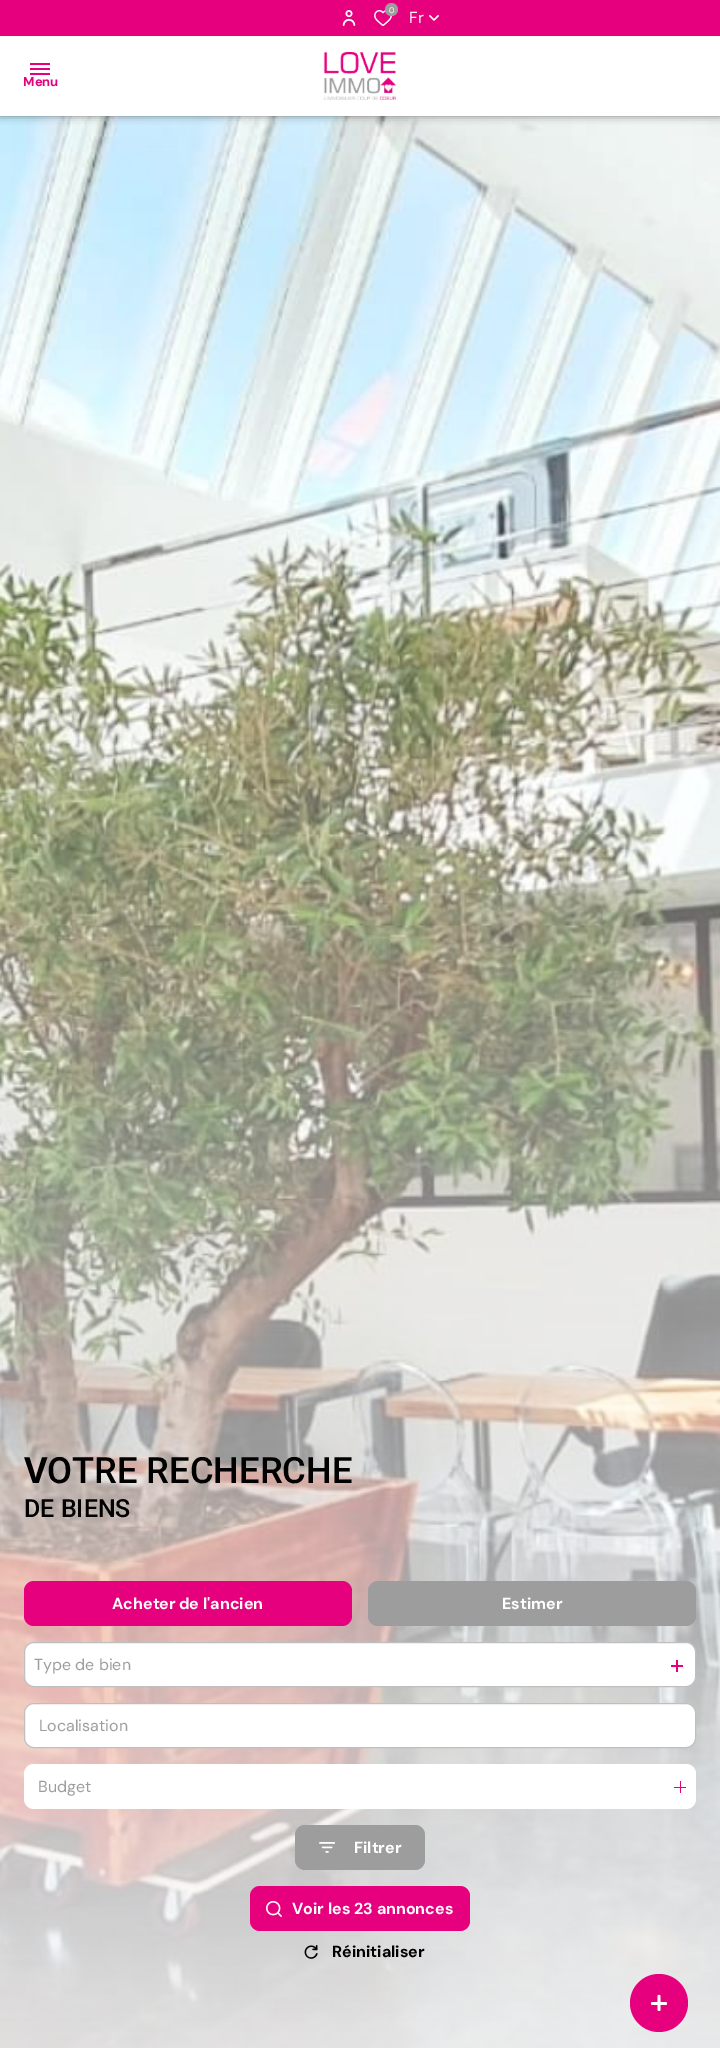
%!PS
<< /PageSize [720 2048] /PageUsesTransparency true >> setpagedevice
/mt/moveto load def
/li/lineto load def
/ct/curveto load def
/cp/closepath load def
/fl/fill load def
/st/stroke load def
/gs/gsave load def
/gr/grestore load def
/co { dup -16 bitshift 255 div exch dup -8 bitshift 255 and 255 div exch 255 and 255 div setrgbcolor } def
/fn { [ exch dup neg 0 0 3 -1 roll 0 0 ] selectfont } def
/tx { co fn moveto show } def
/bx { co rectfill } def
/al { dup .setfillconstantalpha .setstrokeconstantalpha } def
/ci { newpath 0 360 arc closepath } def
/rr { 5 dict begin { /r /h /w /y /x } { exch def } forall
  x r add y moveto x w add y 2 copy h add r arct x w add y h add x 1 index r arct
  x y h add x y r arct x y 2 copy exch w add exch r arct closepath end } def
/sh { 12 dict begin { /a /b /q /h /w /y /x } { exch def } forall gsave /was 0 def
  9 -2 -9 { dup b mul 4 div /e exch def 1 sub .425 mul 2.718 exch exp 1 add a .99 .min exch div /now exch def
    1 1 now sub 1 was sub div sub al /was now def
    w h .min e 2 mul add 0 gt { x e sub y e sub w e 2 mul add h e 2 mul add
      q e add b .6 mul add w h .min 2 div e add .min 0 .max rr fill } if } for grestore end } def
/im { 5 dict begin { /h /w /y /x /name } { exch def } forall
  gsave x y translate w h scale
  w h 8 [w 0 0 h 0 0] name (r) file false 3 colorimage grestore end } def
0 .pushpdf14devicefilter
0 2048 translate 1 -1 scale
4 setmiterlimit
0 0 720 2048 16#FFFFFF bx
(media/5.raw) 0 116 720 1932 im
16#0A0A0A co
0 36 720 80 0 4 .5 sh
0 0 720 36 16#E6007E bx
(media/1.raw) 342 10 14 16 im
(media/2.raw) 374 10 18 16 im
16#9D9D9D co
391.5 9.5 6.5 ci fl
(media/3.raw) 429 15 10 6 im
0 36 720 80 16#FFFFFF bx
30 63 20 2 16#E6007E bx
30 68 20 2 16#E6007E bx
30 73 20 2 16#E6007E bx
(media/4.raw) 323 52 73 48 im
24 1581 328 45 10 rr fl
16#9D9D9D co
368 1581 328 45 10 rr fl
16#FFFFFF co
24.5 1642.5 671 44 9.5 rr gs fl gr
16#BFBFBF co
st
671 1665 12 2 16#E6007E bx
676 1660 2 12 16#E6007E bx
16#FFFFFF co
24.5 1703.5 671 44 9.5 rr gs fl gr
16#BFBFBF co
st
16#FFFFFF co
24 1764 672 45 10 rr fl
680 1781 1 12 16#E6007E bx
674 1787 12 1 16#E6007E bx
16#9D9D9D co
295 1825 130 45 10 rr fl
(media/6.raw) 319 1842 16 11 im
16#E6007E co
250 1886 220 45 10 rr fl
(media/7.raw) 266 1901 16 16 im
(media/8.raw) 304 1945 14 14 im
659 2003 29 ci fl
16#FFFFFF co
651 2002 16 3 1.5 rr fl
660.5 1996.5 mt 660.5 2010 li 660 2011.5 657.5 2011 657.5 2009.5 ct 657.5 1996 li 658 1994.5 660.5 1994.5 660.5 1996.5 ct cp fl
(0) 389 13 /DMSans-Regular 8 16#FFFFFF tx
(Fr) 409 23 /DMSans-Regular 16 16#FFFFFF tx
(Menu) 23 86 /DMSans-Bold 13 16#E6007E tx
(V) 24 1483 /NotoSans-Bold 36.25 16#000000 tx
(OTRE RECHERCHE) 47 1483 /Roboto-Medium 36.25 16#000000 tx
(DE BIENS) 24 1517 /Roboto-Medium 25 16#000000 tx
(Acheter) 112 1609 /DMSans-Bold 16 16#FFFFFF tx
(de l'ancien) 179 1609 /DMSans-Bold 16 16#FFFFFF tx
(Estimer) 502 1609 /DMSans-Bold 16 16#FFFFFF tx
(Type de bien) 34 1670 /DMSans-Regular 16 16#9D9D9D tx
(Localisation) 39 1731 /DMSans-Regular 16 16#9D9D9D tx
(Budget) 38 1792 /DMSans-Regular 16 16#9D9D9D tx
(Filtrer) 354 1853 /DMSans-Bold 16 16#FFFFFF tx
(Voir les 23 annonces) 292 1914 /DMSans-Bold 16 16#FFFFFF tx
(Réinitialiser) 332 1957 /DMSans-Bold 16 16#000000 tx
.poppdf14devicefilter showpage
